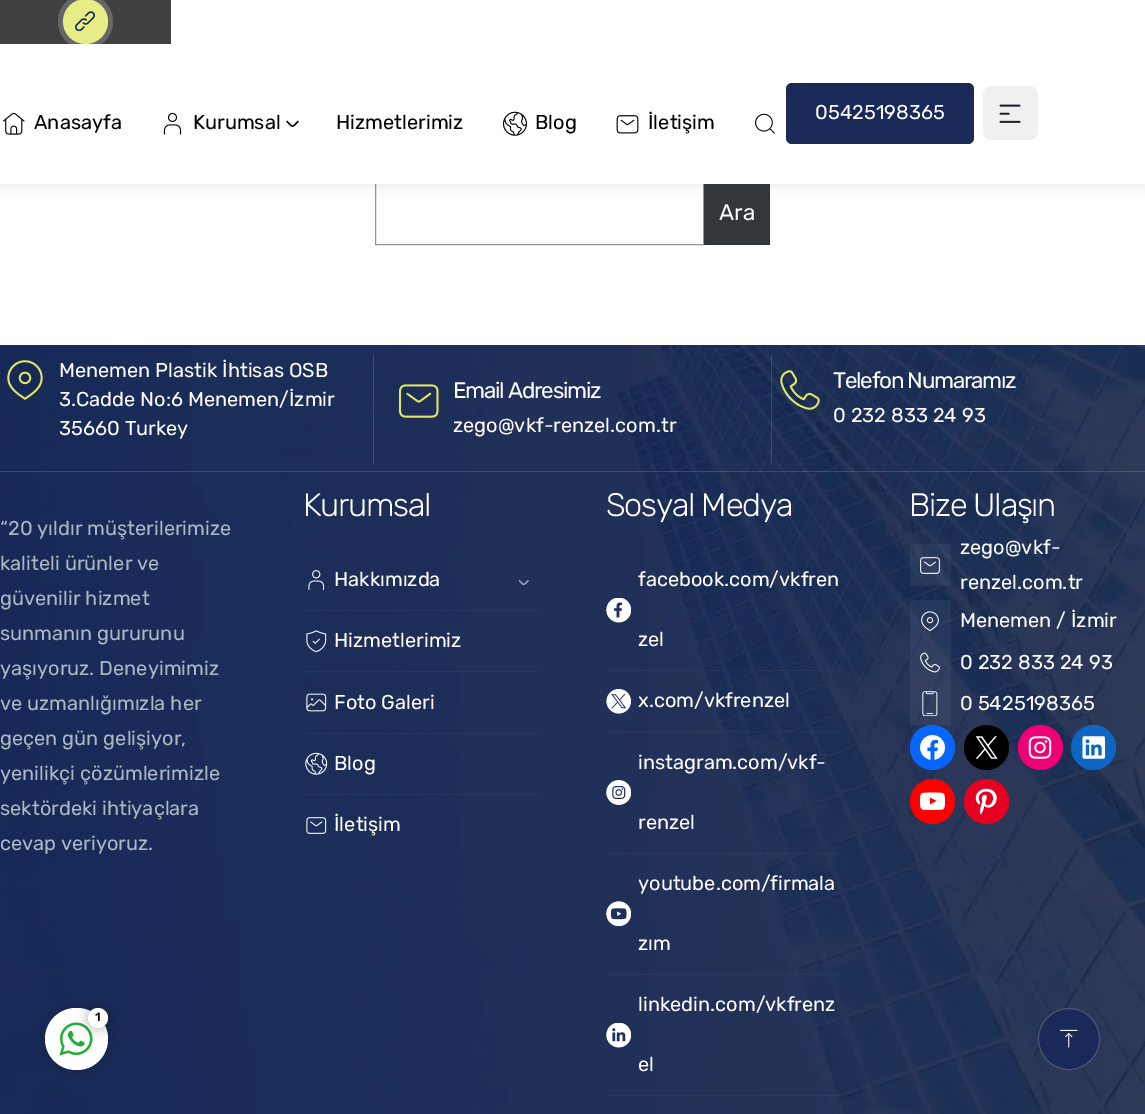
%!PS
<< /PageSize [1145 1114] /PageUsesTransparency true >> setpagedevice
/mt/moveto load def
/fl/fill load def
/st/stroke load def
/co { dup -16 bitshift 255 div exch dup -8 bitshift 255 and 255 div exch 255 and 255 div setrgbcolor } def
/fn { [ exch dup neg 0 0 3 -1 roll 0 0 ] selectfont } def
/tx { co fn moveto show } def
/bx { co rectfill } def
/al { dup .setfillconstantalpha .setstrokeconstantalpha } def
/ci { newpath 0 360 arc closepath } def
/rr { 5 dict begin { /r /h /w /y /x } { exch def } forall
  x r add y moveto x w add y 2 copy h add r arct x w add y h add x 1 index r arct
  x y h add x y r arct x y 2 copy exch w add exch r arct closepath end } def
/sh { 12 dict begin { /a /b /q /h /w /y /x } { exch def } forall gsave /was 0 def
  9 -2 -9 { dup b mul 4 div /e exch def 1 sub .425 mul 2.718 exch exp 1 add a .99 .min exch div /now exch def
    1 1 now sub 1 was sub div sub al /was now def
    w h .min e 2 mul add 0 gt { x e sub y e sub w e 2 mul add h e 2 mul add
      q e add b .6 mul add w h .min 2 div e add .min 0 .max rr fill } if } for grestore end } def
/im { 5 dict begin { /h /w /y /x /name } { exch def } forall
  gsave x y translate w h scale
  w h 8 [w 0 0 h 0 0] name (r) file false 3 colorimage grestore end } def
0 .pushpdf14devicefilter
0 1114 translate 1 -1 scale
4 setmiterlimit
0 0 1145 1114 16#FFFFFF bx
16#949494 co
375.5 181.5 328 63 rectstroke
704 184 66 61 16#32373C bx
16#000000 co
0 0 1145 184 0 7.5 .1 sh
0 0 1145 184 16#FFFFFF bx
0 0 171 44 16#404040 bx
16#DFE865 co
85.5 21.5 22.5 ci fl
0.2 al
16#FFFFFF co
85.5 21.5 27.5 ci fl
1 al
(media/1.raw) 75 11 20 20 im
(media/2.raw) 2 112 23 23 im
(media/3.raw) 163 112 19 23 im
(media/4.raw) 286 120 13 7 im
(media/5.raw) 502 111 25 25 im
(media/6.raw) 616 115 23 19 im
(media/7.raw) 755 113 20 21 im
16#1A2958 co
786 83 188 61 6 rr fl
16#F0F0F0 co
983 86 55 54 9 rr fl
(media/8.raw) 999 104 22 19 im
(media/9.raw) 0 345 1145 769 im
0.15 al
0 471 1145 1 16#FFFFFF bx
1 al
(media/10.raw) 7 360 36 40 im
0.15 al
771 355 1 109 16#FFFFFF bx
1 al
373 355 1 109 16#3E4D71 bx
(media/11.raw) 398 384 41 34 im
(media/12.raw) 780 370 40 40 im
(media/13.raw) 308 570 17 20 im
(media/14.raw) 519 580 10 5 im
0.04 al
304 610 235 1 16#FFFFFF bx
1 al
(media/15.raw) 306 630 21 23 im
0.04 al
304 671 235 1 16#FFFFFF bx
1 al
(media/16.raw) 306 693 21 19 im
0.04 al
304 733 235 1 16#FFFFFF bx
1 al
(media/17.raw) 305 752 23 23 im
0.04 al
304 794 235 1 16#FFFFFF bx
1 al
(media/18.raw) 306 817 21 17 im
(media/19.raw) 606 598 25 25 im
0.04 al
606 670 235 1 16#FFFFFF bx
1 al
(media/20.raw) 606 689 25 25 im
0.04 al
606 731 235 1 16#FFFFFF bx
1 al
(media/21.raw) 606 780 25 25 im
0.04 al
606 853 235 1 16#FFFFFF bx
1 al
(media/22.raw) 606 901 25 25 im
0.04 al
606 974 235 1 16#FFFFFF bx
1 al
(media/23.raw) 606 1023 25 25 im
0.04 al
606 1095 235 1 16#FFFFFF bx
0.05 al
910 544 41 42 16#FFFFFF bx
1 al
(media/24.raw) 920 557 20 17 im
0.05 al
910 600 41 41 16#FFFFFF bx
1 al
(media/25.raw) 921 611 18 21 im
0.05 al
910 641 41 43 16#FFFFFF bx
1 al
(media/26.raw) 920 652 20 21 im
0.05 al
910 684 41 41 16#FFFFFF bx
1 al
(media/27.raw) 922 691 16 25 im
16#0866FF co
932.5 747.5 22.5 ci fl
(media/28.raw) 920 735 25 25 im
16#000000 co
986.5 747.5 22.5 ci fl
(media/29.raw) 975 736 23 23 im
16#F00075 co
1040.5 747.5 22.5 ci fl
(media/30.raw) 1028 736 24 23 im
16#0D66C2 co
1093.5 747.5 22.5 ci fl
(media/31.raw) 1082 736 23 23 im
16#FF0000 co
932.5 801.5 22.5 ci fl
(media/32.raw) 920 792 25 19 im
16#E60122 co
986.5 801.5 22.5 ci fl
(media/33.raw) 975 788 22 27 im
16#000000 co
45 1008 63 62 31 6 .2 sh
16#FFFFFF co
45 1008 63 62 31 rr fl
(media/34.raw) 59 1022 34 34 im
16#000000 co
88 1008 20 20 10 6 .28 sh
16#FFFFFF co
98 1018 10 ci fl
16#1A2958 co
1069 1039 31 ci fl
0.2 al
16#FFFFFF co
1069 1039 30.5 ci st
1 al
(media/35.raw) 1059 1029 19 19 im
(Anasayfa) 34 129 /Rubik-Regular 20 16#000000 tx
(Kurumsal) 193 129 /Rubik-Regular 20 16#000000 tx
(Hizmetlerimiz) 336 129 /Rubik-Regular 20 16#000000 tx
(Blog) 535 129 /Rubik-Regular 20 16#000000 tx
(İletişim) 648 129 /Rubik-Regular 20 16#000000 tx
(05425198365) 815 119 /Rubik-Regular 20 16#FFFFFF tx
(Ara) 719 220 /Rubik-Regular 22.5 16#FFFFFF tx
(Menemen Plastik İhtisas OSB) 59 377 /Rubik-Regular 20 16#FFFFFF tx
(3.Cadde No:6 Menemen/İzmir) 59 406 /Rubik-Regular 20 16#FFFFFF tx
(35660 Turkey) 59 435 /Rubik-Regular 20 16#FFFFFF tx
/Rubik-Regular 22.5 fn
453 398 mt -1.25 0 (Email Adresimiz) ashow
(zego@vkf-renzel.com.tr) 453 432 /Rubik-Regular 20 16#FFFFFF tx
/Rubik-Regular 22.5 fn
833 388 mt -1.25 0 (Telefon Numaramız) ashow
(0 232 833 24 93) 833 422 /Rubik-Regular 20 16#FFFFFF tx
(“20 yıldır müşterilerimize) 0 535 /Rubik-Regular 20 16#ABB8C3 tx
(kaliteli ürünler ve) 0 570 /Rubik-Regular 20 16#ABB8C3 tx
(güvenilir hizmet) 0 605 /Rubik-Regular 20 16#ABB8C3 tx
(sunmanın gururunu) 0 640 /Rubik-Regular 20 16#ABB8C3 tx
(yaşıyoruz. Deneyimimiz) 0 675 /Rubik-Regular 20 16#ABB8C3 tx
(ve uzmanlığımızla her) 0 710 /Rubik-Regular 20 16#ABB8C3 tx
(geçen gün gelişiyor,) 0 745 /Rubik-Regular 20 16#ABB8C3 tx
(yenilikçi çözümlerimizle) 0 780 /Rubik-Regular 20 16#ABB8C3 tx
(sektördeki ihtiyaçlara) 0 815 /Rubik-Regular 20 16#ABB8C3 tx
(cevap veriyoruz.) 0 850 /Rubik-Regular 20 16#ABB8C3 tx
/Rubik-Light 32.5 fn
16#FFFFFF co
303 516 mt -1.25 0 (Kurumsal) ashow
(Hakkımızda) 334 586 /Rubik-Regular 20 16#FFFFFF tx
(Hizmetlerimiz) 334 647 /Rubik-Regular 20 16#FFFFFF tx
(Foto Galeri) 334 709 /Rubik-Regular 20 16#FFFFFF tx
(Blog) 334 770 /Rubik-Regular 20 16#FFFFFF tx
(İletişim) 334 831 /Rubik-Regular 20 16#FFFFFF tx
/Rubik-Light 32.5 fn
606 516 mt -1.25 0 (Sosyal Medya) ashow
(facebook.com/vkfren) 638 586 /Rubik-Regular 20 16#FFFFFF tx
(zel) 638 646 /Rubik-Regular 20 16#FFFFFF tx
(x.com/vkfrenzel) 638 707 /Rubik-Regular 20 16#FFFFFF tx
(instagram.com/vkf-) 638 769 /Rubik-Regular 20 16#FFFFFF tx
(renzel) 638 829 /Rubik-Regular 20 16#FFFFFF tx
(youtube.com/firmala) 638 890 /Rubik-Regular 20 16#FFFFFF tx
(zım) 638 950 /Rubik-Regular 20 16#FFFFFF tx
(linkedin.com/vkfrenz) 638 1011 /Rubik-Regular 20 16#FFFFFF tx
(el) 638 1071 /Rubik-Regular 20 16#FFFFFF tx
/Rubik-Light 32.5 fn
909 516 mt -1.25 0 (Bize Ulaşın) ashow
(zego@vkf-) 960 554 /Rubik-Regular 20 16#FFFFFF tx
(renzel.com.tr) 960 589 /Rubik-Regular 20 16#FFFFFF tx
(Menemen / İzmir) 960 627 /Rubik-Regular 20 16#FFFFFF tx
(0 232 833 24 93) 960 669 /Rubik-Regular 20 16#FFFFFF tx
(0 5425198365) 960 710 /Rubik-Regular 20 16#FFFFFF tx
(1) 95 1021 /Rubik-Medium 12 16#000000 tx
.poppdf14devicefilter showpage
